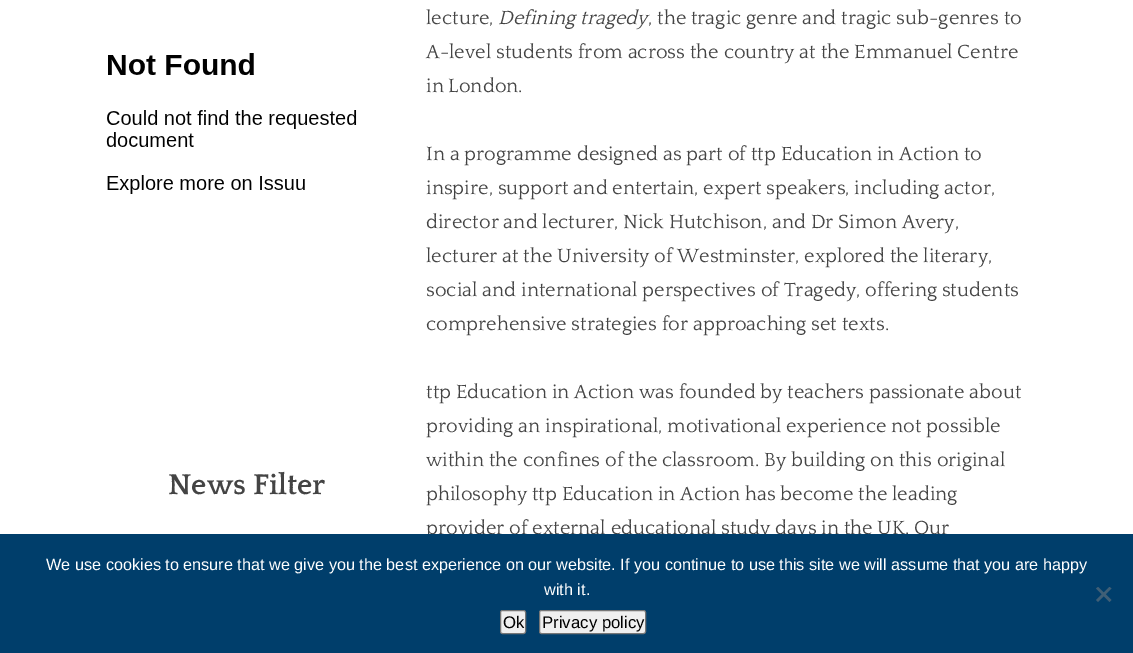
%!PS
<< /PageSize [1133 653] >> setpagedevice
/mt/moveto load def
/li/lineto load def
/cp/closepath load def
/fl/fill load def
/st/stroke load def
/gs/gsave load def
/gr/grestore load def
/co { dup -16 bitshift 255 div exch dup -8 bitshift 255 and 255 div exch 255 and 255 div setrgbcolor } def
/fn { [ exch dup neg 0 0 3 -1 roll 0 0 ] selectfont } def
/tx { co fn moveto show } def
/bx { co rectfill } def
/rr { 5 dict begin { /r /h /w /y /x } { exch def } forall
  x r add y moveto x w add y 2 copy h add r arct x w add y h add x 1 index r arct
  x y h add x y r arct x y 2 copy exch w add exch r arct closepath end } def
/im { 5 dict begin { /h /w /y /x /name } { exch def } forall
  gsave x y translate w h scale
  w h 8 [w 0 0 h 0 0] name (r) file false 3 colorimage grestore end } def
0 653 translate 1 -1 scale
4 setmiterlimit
0 0 1133 653 16#FFFFFF bx
(media/1.raw) 106 53 251 141 im
(News Filter) 168 494 /Quattrocento-Bold 30 16#444444 tx
(lecture,) 426 24 /Quattrocento-Regular 20 16#444444 tx
(Defining tragedy) 498 24 /Quattrocento-Italic 20 16#444444 tx
(, the tragic genre and tragic sub-genres to) 648 24 /Quattrocento-Regular 20 16#444444 tx
(A-level students from across the country at the Emmanuel Centre) 426 58 /Quattrocento-Regular 20 16#444444 tx
(in London.) 426 92 /Quattrocento-Regular 20 16#444444 tx
(In a programme designed as part of ttp Education in Action to) 426 160 /Quattrocento-Regular 20 16#444444 tx
(inspire, support and entertain, expert speakers, including actor,) 426 194 /Quattrocento-Regular 20 16#444444 tx
(director and lecturer, Nick Hutchison, and Dr Simon Avery,) 426 228 /Quattrocento-Regular 20 16#444444 tx
(lecturer at the University of Westminster, explored the literary,) 426 262 /Quattrocento-Regular 20 16#444444 tx
(social and international perspectives of Tragedy, offering students) 426 296 /Quattrocento-Regular 20 16#444444 tx
(comprehensive strategies for approaching set texts.) 426 330 /Quattrocento-Regular 20 16#444444 tx
(ttp Education in Action was founded by teachers passionate about) 426 398 /Quattrocento-Regular 20 16#444444 tx
(providing an inspirational, motivational experience not possible) 426 432 /Quattrocento-Regular 20 16#444444 tx
(within the confines of the classroom. By building on this original) 426 466 /Quattrocento-Regular 20 16#444444 tx
(philosophy ttp Education in Action has become the leading) 426 500 /Quattrocento-Regular 20 16#444444 tx
(provider of external educational study days in the UK. Our) 426 534 /Quattrocento-Regular 20 16#444444 tx
0 534 1133 119 16#003E6B bx
(We use cookies to ensure that we give you the best experience on our website. If you continue to use this site we will assume that you are happy) 46 570 /LiberationSans-Regular 16.25 16#FFFFFF tx
(with it.) 544 595 /LiberationSans-Regular 16.25 16#FFFFFF tx
16#405F76 co
1109.5 587 mt 1111.5 588.5 li 1098 602 li 1096 600 li cp fl
1096 588.5 mt 1098 587 li 1111.5 600 li 1109.5 602 li cp fl
16#EFEFEF co
500.5 610.5 25 23 2 rr gs fl gr
16#767676 co
st
(Ok) 503 628 /LiberationSans-Regular 16.75 16#000000 tx
16#EFEFEF co
539.5 610.5 106 23 2 rr gs fl gr
16#767676 co
st
(Privacy policy) 542 628 /LiberationSans-Regular 16.75 16#000000 tx
showpage
